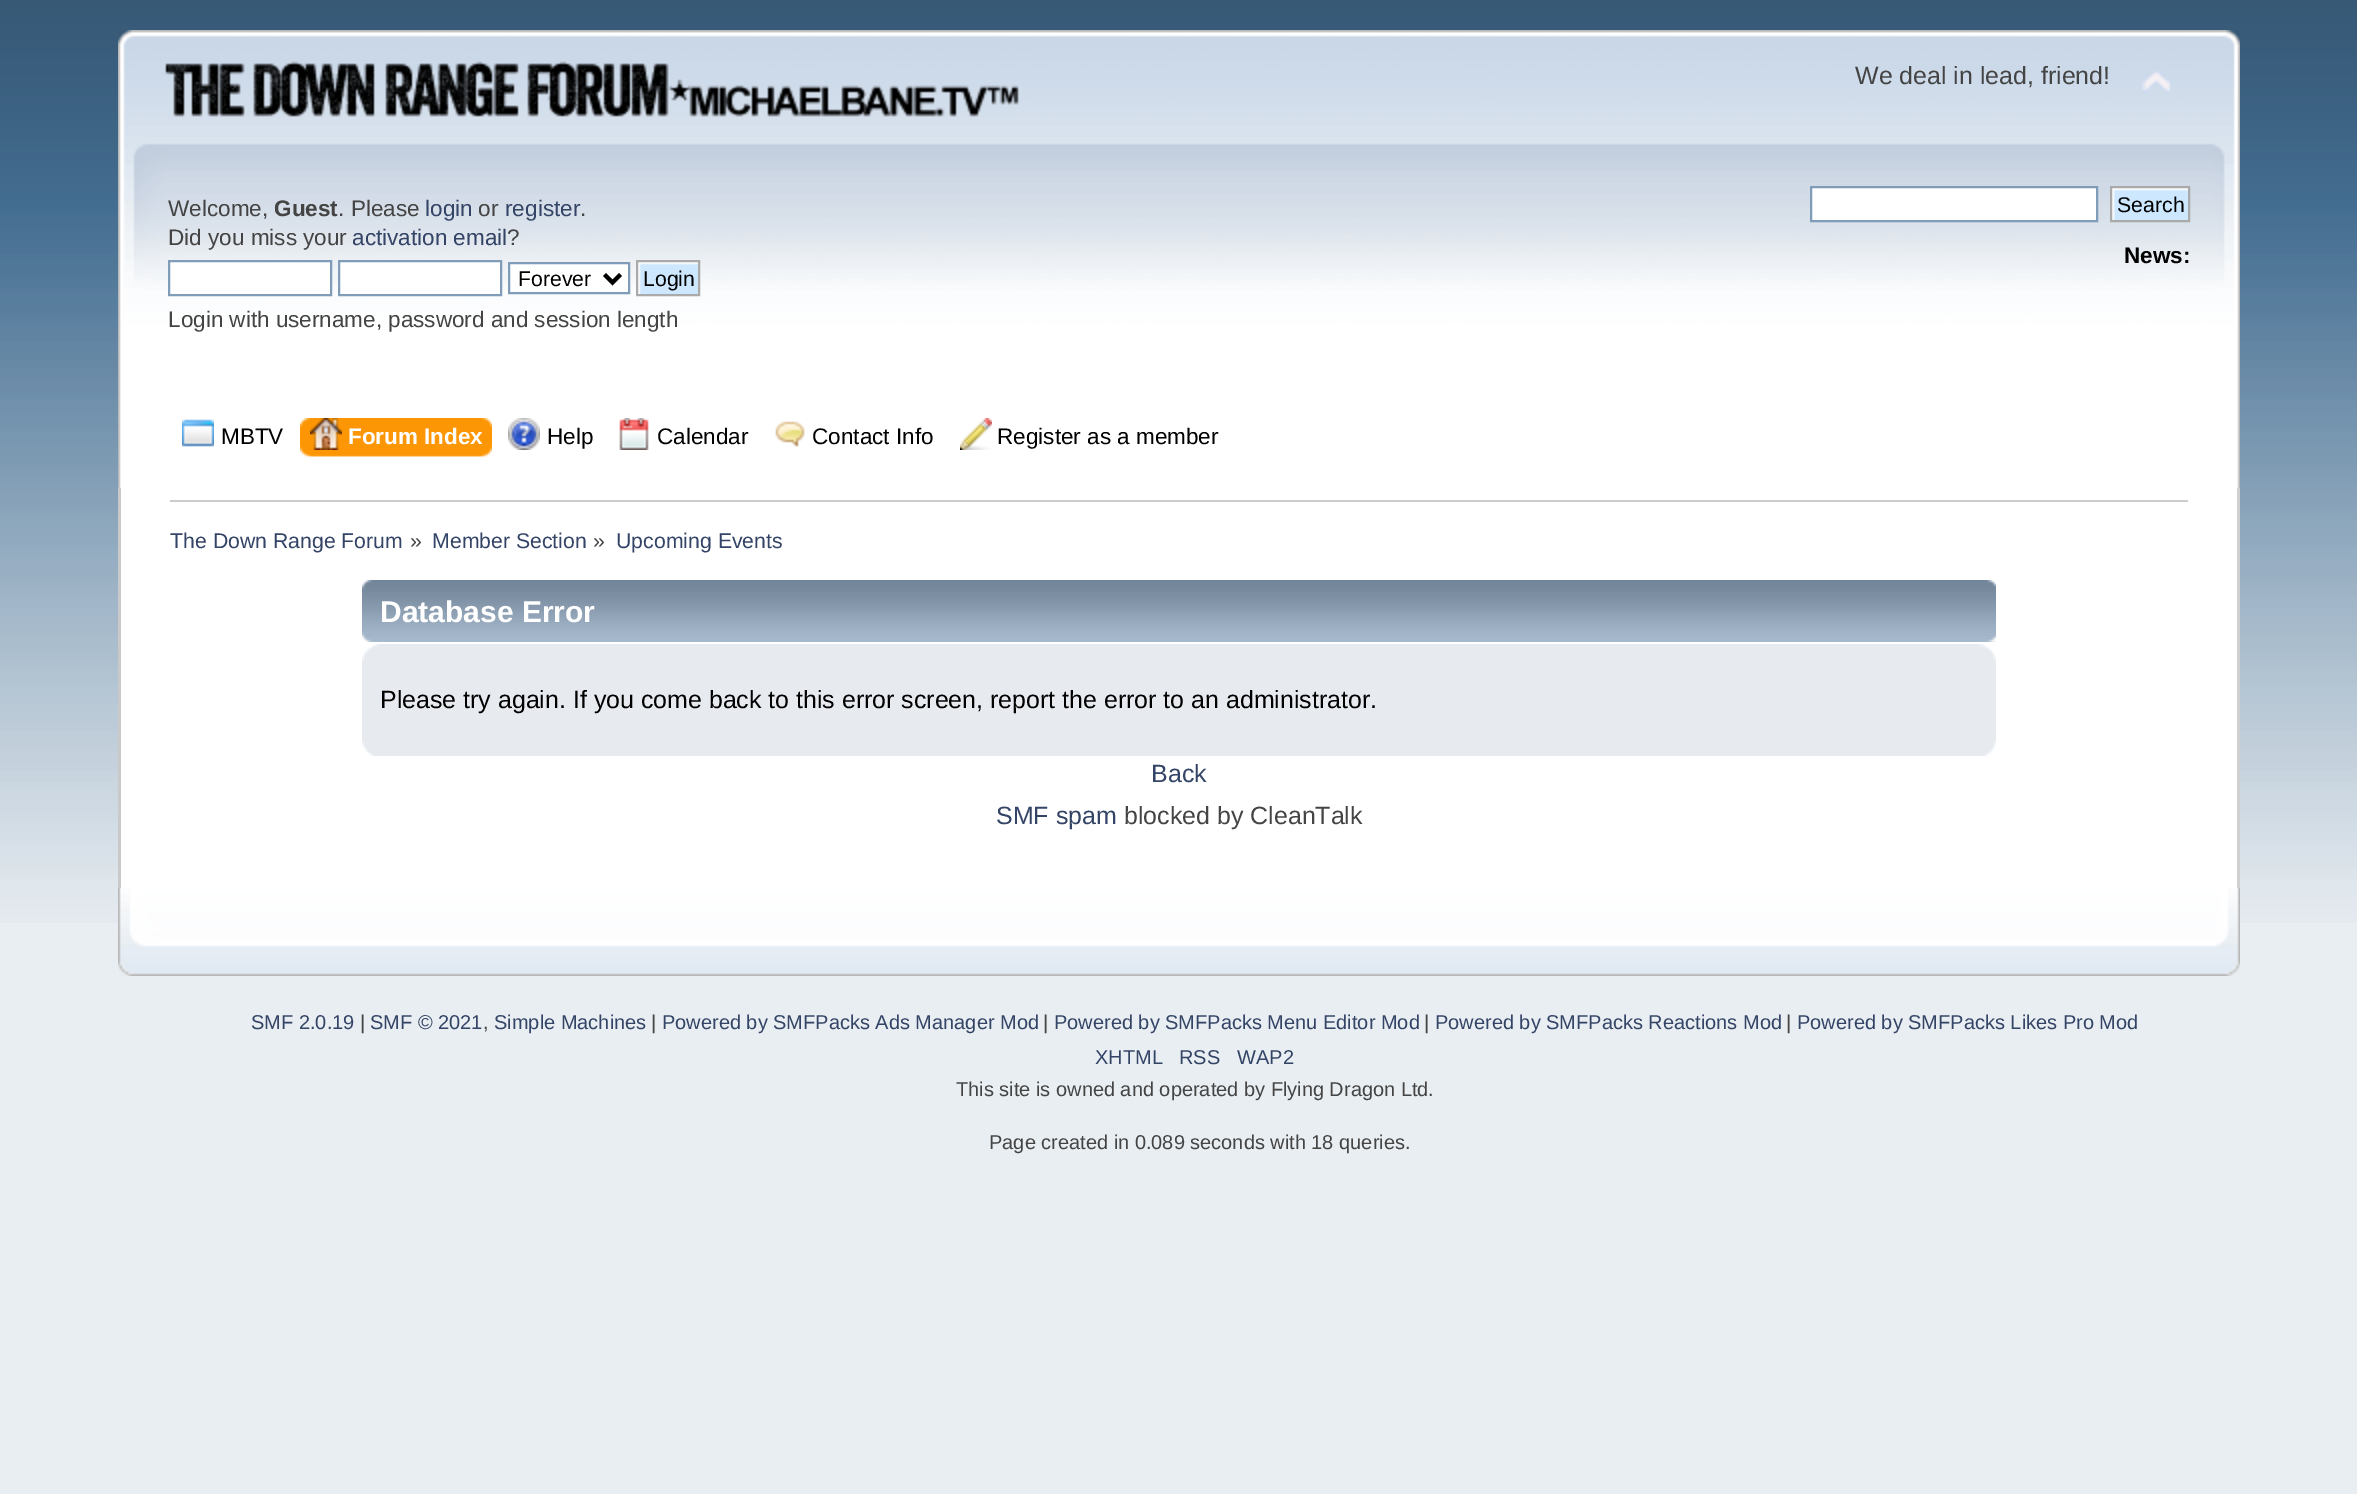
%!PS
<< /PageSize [2357 1494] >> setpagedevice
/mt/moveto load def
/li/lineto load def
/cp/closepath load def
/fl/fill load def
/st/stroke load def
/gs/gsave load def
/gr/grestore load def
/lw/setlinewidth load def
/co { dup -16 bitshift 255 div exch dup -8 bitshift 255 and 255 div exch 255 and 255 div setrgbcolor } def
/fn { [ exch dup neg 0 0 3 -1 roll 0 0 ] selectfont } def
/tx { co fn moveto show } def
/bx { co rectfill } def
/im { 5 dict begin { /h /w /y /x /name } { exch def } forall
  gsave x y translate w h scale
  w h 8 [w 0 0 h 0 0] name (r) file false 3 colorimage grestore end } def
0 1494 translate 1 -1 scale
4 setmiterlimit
0 0 2357 1494 16#E9EEF2 bx
(media/1.raw) 0 0 2357 923 im
(media/2.raw) 118 30 2095 458 im
(media/3.raw) 2213 30 27 458 im
(media/4.raw) 165 61 854 56 im
(media/5.raw) 2142 71 29 23 im
16#FFFFFF co
169 261 mt 331 261 li 331 295 li 169 295 li cp gs fl gr
16#7F9DB9 co
2 lw
st
16#FFFFFF co
339 261 mt 501 261 li 501 295 li 339 295 li cp gs fl gr
16#7F9DB9 co
st
16#FFFFFF co
509 263 mt 629 263 li 629 293 li 509 293 li cp gs fl gr
16#7F9DB9 co
st
16#000000 co
4 lw
604.5 274.5 mt 612.5 282.5 li 620.5 274.5 li st
(media/6.raw) 638 262 60 32 im
16#AAAAAA co
2 lw
637 261 62 34 rectstroke
16#FFFFFF co
1811 187 mt 2097 187 li 2097 221 li 1811 221 li cp gs fl gr
16#7F9DB9 co
st
(media/7.raw) 2112 188 76 32 im
16#AAAAAA co
2111 187 78 34 rectstroke
(media/8.raw) 182 419 32 28 im
(media/9.raw) 310 418 182 39 im
(media/10.raw) 300 418 182 39 im
(media/11.raw) 310 418 32 32 im
(media/12.raw) 508 418 32 32 im
(media/13.raw) 619 418 30 32 im
(media/14.raw) 775 421 30 26 im
(media/15.raw) 960 418 32 32 im
121 488 2116 400 16#FFFFFF bx
118 488 3 400 16#C9C9C9 bx
2237 488 3 400 16#D0D0D0 bx
170 500 2018 2 16#CCCCCC bx
(media/16.raw) 362 580 1634 62 im
(media/17.raw) 1987 580 9 62 im
362 644 1634 112 16#E7EAEF bx
(media/18.raw) 362 644 17 17 im
(media/19.raw) 1979 644 17 16 im
(media/20.raw) 362 741 11 15 im
(media/21.raw) 1985 741 11 15 im
(media/22.raw) 118 888 2098 88 im
(media/23.raw) 2216 888 24 88 im
(We deal in lead, friend!) 1855 84 /LiberationSans-Regular 24.95 16#444444 tx
(Welcome,) 168 216 /LiberationSans-Regular 22.5 16#444444 tx
(Guest) 274 216 /LiberationSans-Bold 22.5 16#444444 tx
(. Please) 338 216 /LiberationSans-Regular 22.5 16#444444 tx
(login) 425 216 /LiberationSans-Regular 22.5 16#334466 tx
(or) 478 216 /LiberationSans-Regular 22.5 16#444444 tx
(register) 505 216 /LiberationSans-Regular 22.5 16#334466 tx
(.) 580 216 /LiberationSans-Regular 22.5 16#444444 tx
(Did you miss your) 168 245 /LiberationSans-Regular 22.5 16#444444 tx
(activation email) 352 245 /LiberationSans-Regular 22.5 16#334466 tx
(?) 507 245 /LiberationSans-Regular 22.5 16#444444 tx
(Forever) 518 286 /LiberationSans-Regular 21.25 16#000000 tx
(Login) 643 286 /LiberationSans-Regular 21.25 16#000000 tx
(Login with username, password and session length) 168 327 /LiberationSans-Regular 22.5 16#444444 tx
(Search) 2117 212 /LiberationSans-Regular 21.25 16#000000 tx
(News:) 2124 263 /LiberationSans-Bold 22.5 16#000000 tx
(MBTV) 221 444 /LiberationSans-Regular 22.5 16#000000 tx
(Forum Index) 348 444 /LiberationSans-Bold 22.5 16#FFFFFF tx
(Help) 547 444 /LiberationSans-Regular 22.5 16#000000 tx
(Calendar) 657 444 /LiberationSans-Regular 22.5 16#000000 tx
(Contact Info) 812 444 /LiberationSans-Regular 22.5 16#000000 tx
(Register as a member) 997 444 /LiberationSans-Regular 22.5 16#000000 tx
(The Down Range Forum) 170 548 /LiberationSans-Regular 21.25 16#334466 tx
(») 410 548 /LiberationSans-Regular 21.25 16#444444 tx
(Member Section) 432 548 /LiberationSans-Regular 21.25 16#334466 tx
(») 593 548 /LiberationSans-Regular 21.25 16#444444 tx
(Upcoming Events) 616 548 /LiberationSans-Regular 21.25 16#334466 tx
(Database Error) 380 622 /LiberationSans-Bold 30 16#FFFFFF tx
(Please try again. If you come back to this error screen, report the error to an administrator.) 380 708 /LiberationSans-Regular 24.95 16#000000 tx
(Back) 1151 782 /LiberationSans-Regular 24.95 16#334466 tx
(SMF spam) 996 824 /LiberationSans-Regular 24.95 16#334466 tx
(blocked by CleanTalk) 1124 824 /LiberationSans-Regular 24.95 16#444444 tx
(SMF 2.0.19) 251 1029 /LiberationSans-Regular 20 16#334466 tx
(|) 360 1029 /LiberationSans-Regular 20 16#444444 tx
(SMF © 2021) 370 1029 /LiberationSans-Regular 20 16#334466 tx
(,) 483 1029 /LiberationSans-Regular 20 16#444444 tx
(Simple Machines) 494 1029 /LiberationSans-Regular 20 16#334466 tx
(|) 651 1029 /LiberationSans-Regular 20 16#444444 tx
(Powered by SMFPacks Ads Manager Mod) 662 1029 /LiberationSans-Regular 20 16#334466 tx
(|) 1043 1029 /LiberationSans-Regular 20 16#444444 tx
(Powered by SMFPacks Menu Editor Mod) 1054 1029 /LiberationSans-Regular 20 16#334466 tx
(|) 1424 1029 /LiberationSans-Regular 20 16#444444 tx
(Powered by SMFPacks Reactions Mod) 1435 1029 /LiberationSans-Regular 20 16#334466 tx
(|) 1786 1029 /LiberationSans-Regular 20 16#444444 tx
(Powered by SMFPacks Likes Pro Mod) 1797 1029 /LiberationSans-Regular 20 16#334466 tx
(XHTML) 1095 1064 /LiberationSans-Regular 20 16#334466 tx
(RSS) 1179 1064 /LiberationSans-Regular 20 16#334466 tx
(WAP2) 1237 1064 /LiberationSans-Regular 20 16#334466 tx
(This site is owned and operated by Flying Dragon Ltd.) 956 1096 /LiberationSans-Regular 20 16#444444 tx
(Page created in 0.089 seconds with 18 queries.) 989 1149 /LiberationSans-Regular 20 16#444444 tx
showpage
